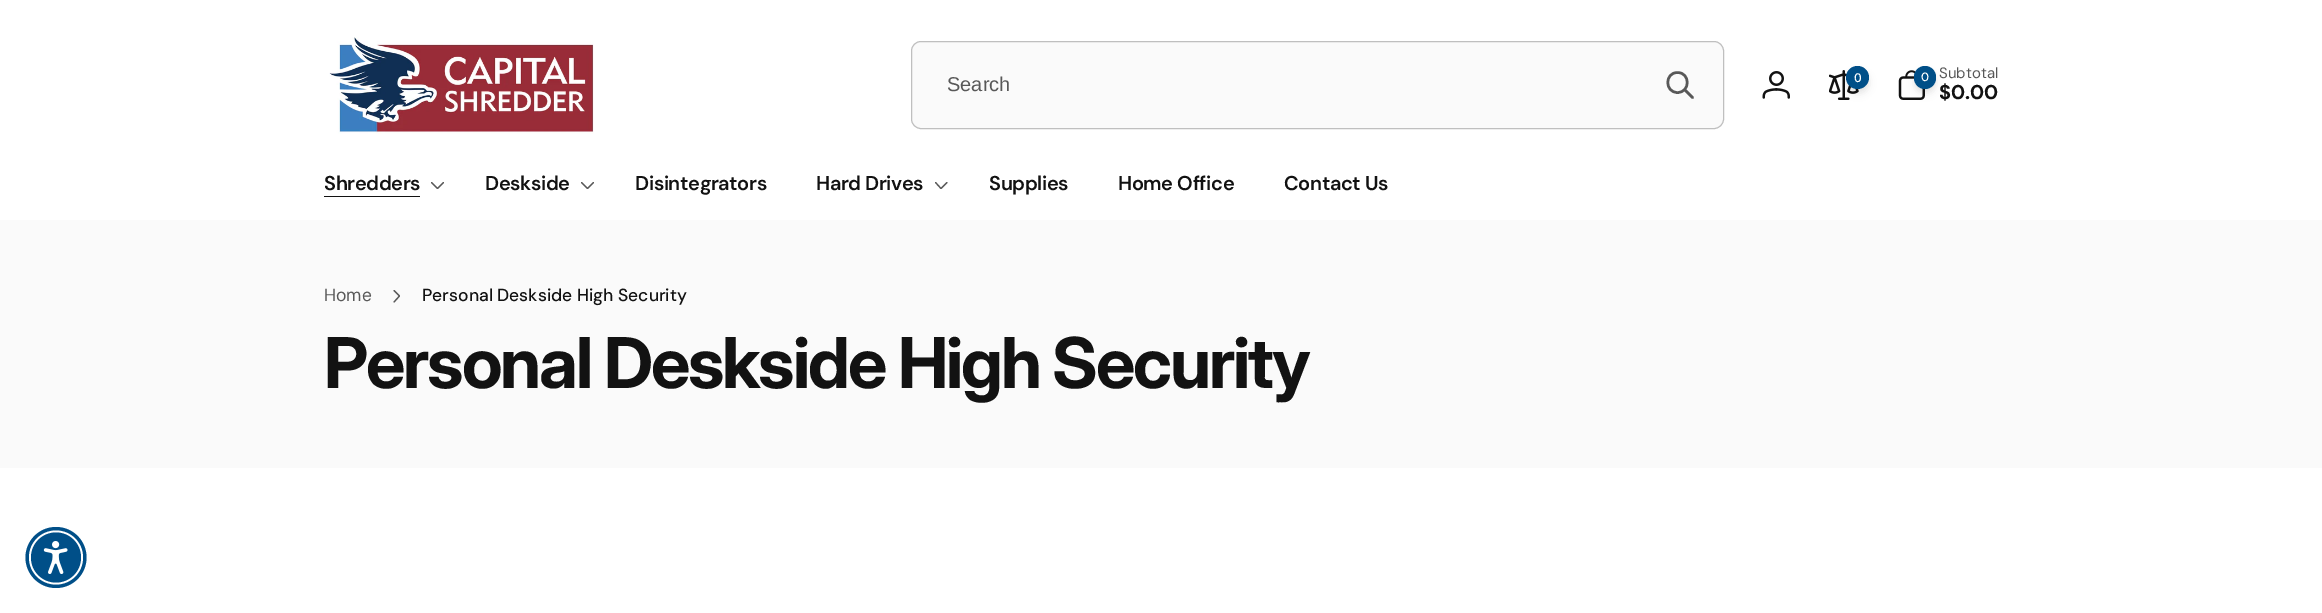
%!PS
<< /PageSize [2322 613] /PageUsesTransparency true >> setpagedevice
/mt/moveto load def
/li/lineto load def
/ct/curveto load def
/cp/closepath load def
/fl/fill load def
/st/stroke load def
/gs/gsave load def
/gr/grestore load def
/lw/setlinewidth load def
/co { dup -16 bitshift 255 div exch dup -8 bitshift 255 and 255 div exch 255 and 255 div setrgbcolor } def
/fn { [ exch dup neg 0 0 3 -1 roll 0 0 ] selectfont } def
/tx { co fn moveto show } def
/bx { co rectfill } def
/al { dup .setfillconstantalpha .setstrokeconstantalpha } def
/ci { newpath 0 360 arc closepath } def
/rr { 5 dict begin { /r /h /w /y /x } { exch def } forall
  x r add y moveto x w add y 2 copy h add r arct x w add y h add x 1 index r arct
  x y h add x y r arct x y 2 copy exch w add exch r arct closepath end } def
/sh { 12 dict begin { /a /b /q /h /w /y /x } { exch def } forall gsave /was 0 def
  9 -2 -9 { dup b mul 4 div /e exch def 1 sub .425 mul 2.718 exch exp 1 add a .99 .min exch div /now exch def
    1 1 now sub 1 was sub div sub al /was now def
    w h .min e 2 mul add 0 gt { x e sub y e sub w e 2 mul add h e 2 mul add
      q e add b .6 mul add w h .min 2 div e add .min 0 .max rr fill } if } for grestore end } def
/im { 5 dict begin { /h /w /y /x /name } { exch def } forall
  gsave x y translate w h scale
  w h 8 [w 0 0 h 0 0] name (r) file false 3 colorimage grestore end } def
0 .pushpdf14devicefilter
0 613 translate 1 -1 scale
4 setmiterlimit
0 0 2322 613 16#FFFFFF bx
(media/1.raw) 329 37 265 97 im
16#FAFAFA co
911.5 41.5 812 87 9.5 rr gs fl gr
16#BFBFBF co
st
16#585858 co
2.5 lw
1 setlinecap
1 setlinejoin
1692.5 97.5 mt 1684.5 89.5 li 1677.5 92.5 mt 1690.5 92.5 1690.5 72.5 1677.5 72.5 ct 1664.5 72.5 1664.5 92.5 1677.5 92.5 ct cp st
(media/2.raw) 1762 71 28 28 im
(media/3.raw) 1829 70 30 30 im
16#121212 co
1848 70 20 20 10 2.5 .06 sh
1848 73 20 20 10 4 .1 sh
16#004F88 co
1857.5 77.5 11.5 ci fl
(media/4.raw) 1898 70 27 30 im
16#121212 co
1915 70 20 20 10 2.5 .06 sh
1915 73 20 20 10 4 .1 sh
16#004F88 co
1914 66 22 23 11 rr fl
324 196 96 1 16#121212 bx
16#595959 co
1.2 lw
443.5 182.5 mt 437.5 188.5 li 431.5 182.5 li st
593.5 182.5 mt 587.5 188.5 li 581.5 182.5 li st
947 182.5 mt 941 188.5 li 935.5 182.5 li st
0 220 2322 248 16#FAFAFA bx
16#585858 co
394 290.5 mt 399.5 296 li 394 302 li st
16#004F88 co
56 557.5 30.5 ci fl
16#FFFFFF co
56 557.5 27 ci fl
16#004F88 co
56 557.5 25 ci fl
(media/5.raw) 43 541 25 33 im
(Search) 947 91 /LiberationSans-Regular 20 16#585858 tx
(0) 1854 82 /Inter-Medium 12 16#FFFFFF tx
(0) 1921 81 /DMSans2-Medium 12 16#FFFFFF tx
(Subtotal) 1939 78 /DMSans2-Regular 15 16#585858 tx
($0.00) 1939 99 /DMSans-Bold 20 16#121212 tx
/DMSans-SemiBold 20 fn
324 190 mt -.4 0 (Shredders) ashow
485 190 mt -.4 0 (Deskside) ashow
635 190 mt -.4 0 (Disintegrators) ashow
816 190 mt -.4 0 (Hard Drives) ashow
989 190 mt -.4 0 (Supplies) ashow
1118 190 mt -.4 0 (Home Office) ashow
1284 190 mt -.4 0 (Contact Us) ashow
(Home) 324 301 /DMSans-Regular 17.5 16#585858 tx
(Personal Deskside High Security) 422 301 /DMSans-Medium 17.5 16#121212 tx
/Inter-Bold 70 fn
324 388 mt -2.1 0 (Personal Deskside High Security) ashow
.poppdf14devicefilter showpage
